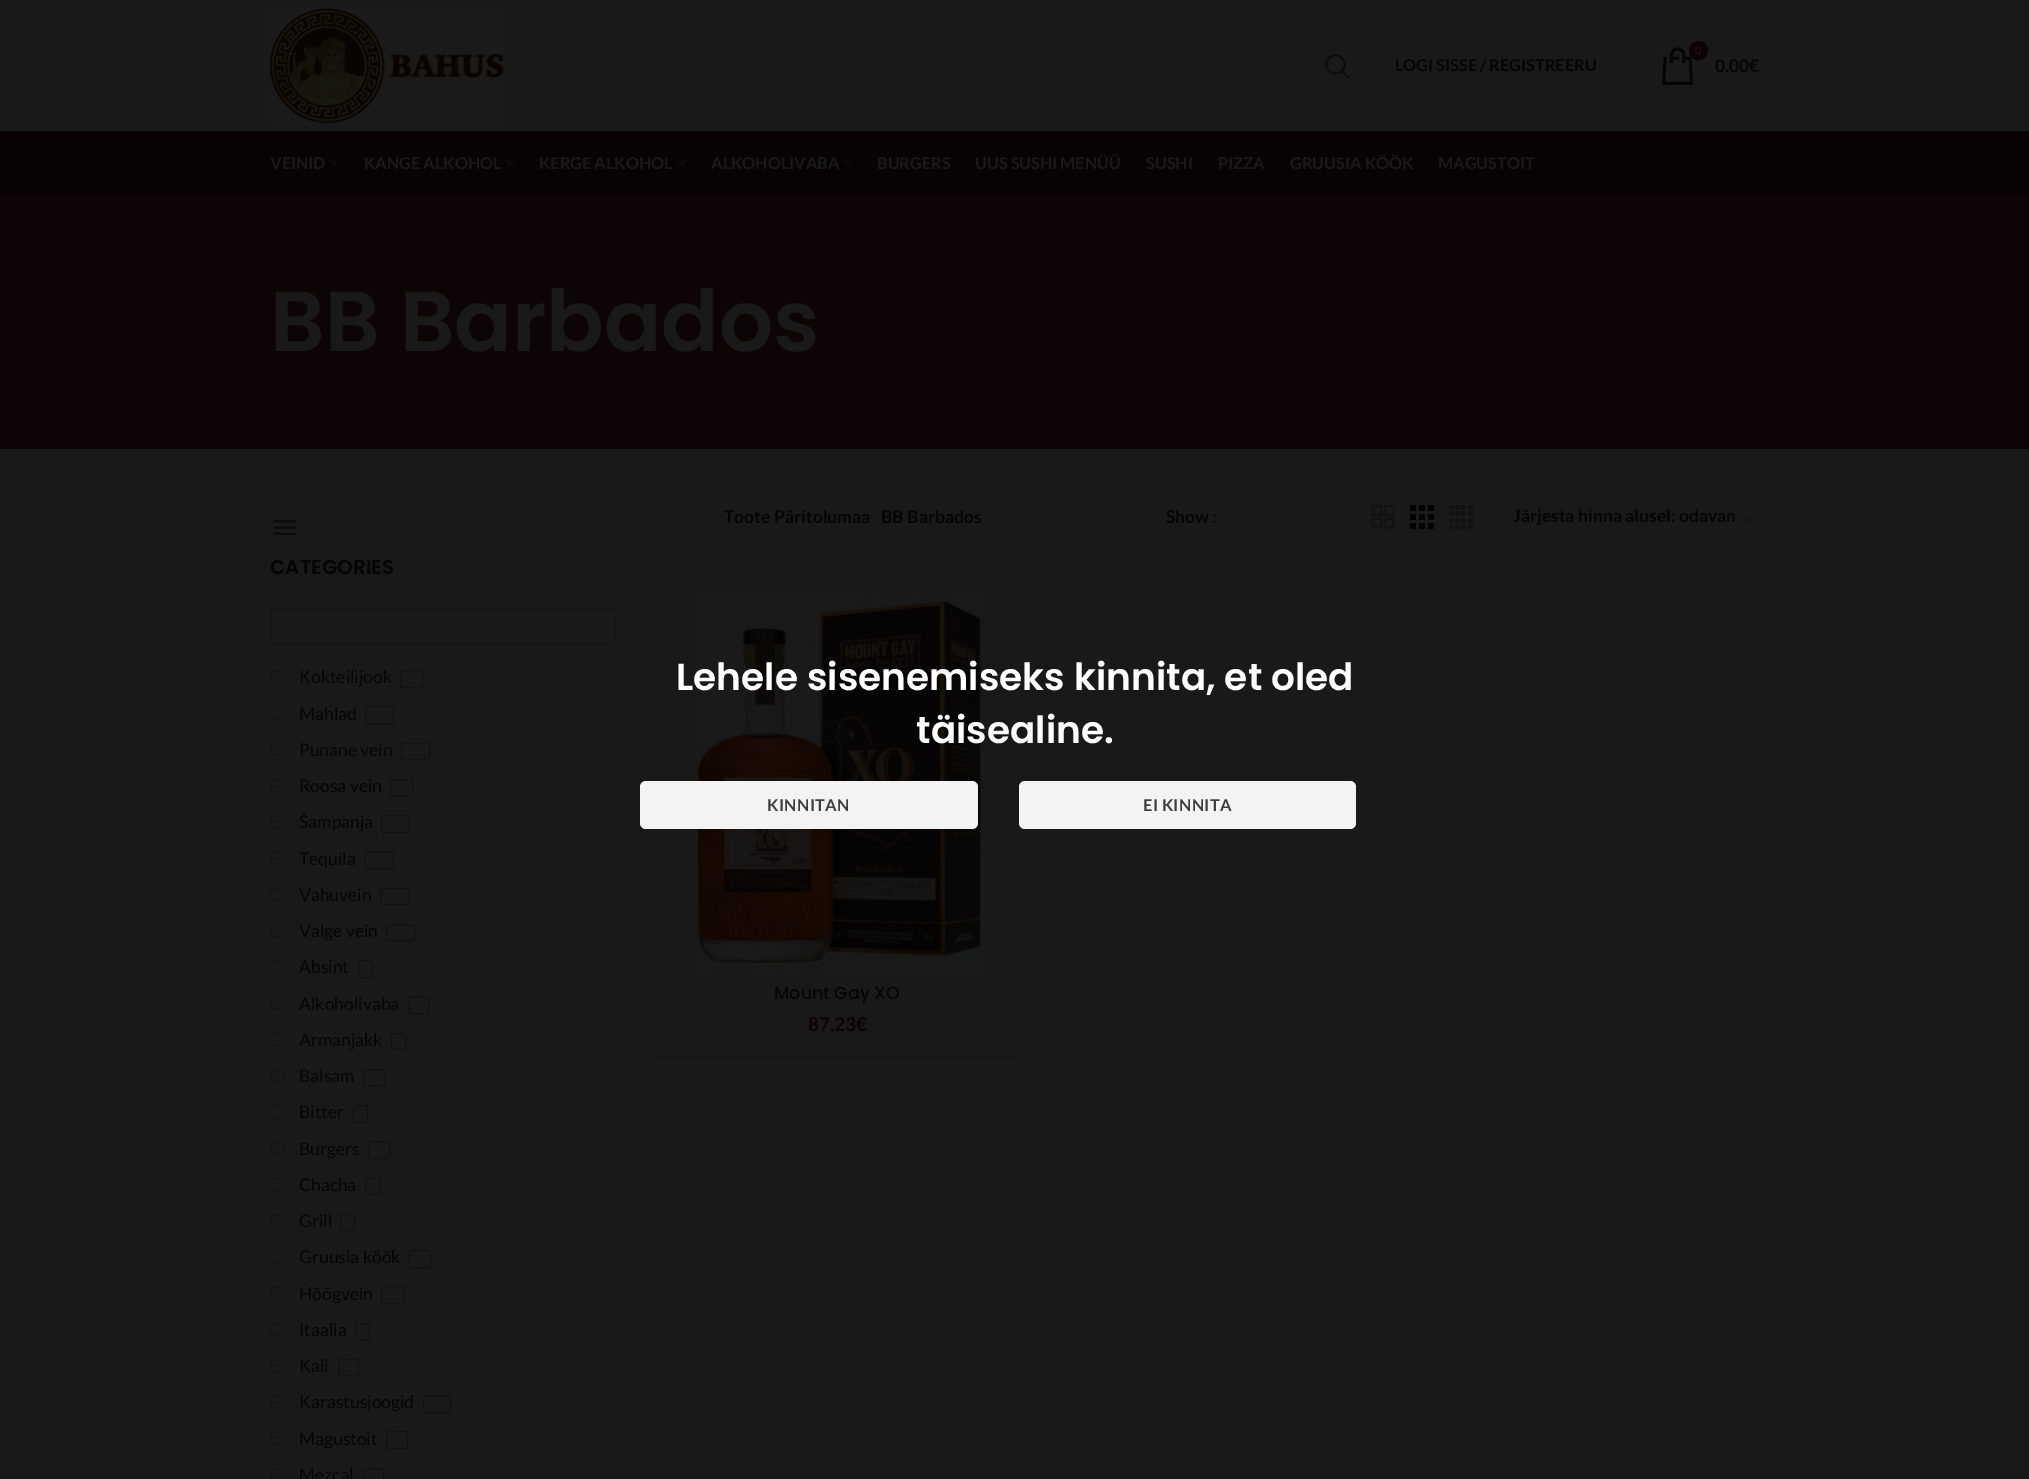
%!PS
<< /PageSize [2029 1479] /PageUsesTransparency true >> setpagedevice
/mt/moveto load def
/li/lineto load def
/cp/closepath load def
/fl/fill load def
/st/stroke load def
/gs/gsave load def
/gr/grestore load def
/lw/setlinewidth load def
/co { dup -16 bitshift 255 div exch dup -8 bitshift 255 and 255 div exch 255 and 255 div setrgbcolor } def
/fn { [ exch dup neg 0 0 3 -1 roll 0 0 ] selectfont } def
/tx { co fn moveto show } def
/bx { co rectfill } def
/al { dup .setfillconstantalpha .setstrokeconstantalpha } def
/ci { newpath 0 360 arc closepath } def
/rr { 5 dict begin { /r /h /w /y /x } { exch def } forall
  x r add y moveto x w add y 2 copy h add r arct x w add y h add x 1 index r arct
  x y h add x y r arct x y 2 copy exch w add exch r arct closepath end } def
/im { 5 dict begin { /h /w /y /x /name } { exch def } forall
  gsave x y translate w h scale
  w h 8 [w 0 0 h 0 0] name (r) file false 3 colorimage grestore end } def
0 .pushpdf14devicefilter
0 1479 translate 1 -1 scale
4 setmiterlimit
0 0 2029 1479 16#191919 bx
(media/1.raw) 270 8 234 117 im
(media/2.raw) 1325 54 25 25 im
(media/3.raw) 1661 47 33 38 im
16#0D0204 co
1698.5 50.5 9.5 ci fl
0 131 2029 65 16#090204 bx
(media/4.raw) 330 160 8 5 im
(media/5.raw) 506 160 9 5 im
(media/6.raw) 677 160 9 5 im
(media/7.raw) 843 160 9 5 im
0 196 2029 253 16#0D0406 bx
(media/8.raw) 273 520 24 15 im
16#141414 co
270.5 608.5 344 35 rectstroke
277 677 6.5 ci st
16#111111 co
400.5 670.5 22 17 2 rr st
16#141414 co
277 713 6.5 ci st
16#111111 co
365.5 706.5 28 17 2 rr st
16#141414 co
270.5 743.5 13 12 6 rr st
16#111111 co
401.5 743.5 28 16 2 rr st
16#141414 co
277 786 6.5 ci st
16#111111 co
390.5 779.5 22 16 2 rr st
16#141414 co
277 822 6.5 ci st
16#111111 co
381.5 815.5 28 17 2 rr st
16#141414 co
277 858 6.5 ci st
16#111111 co
364.5 851.5 29 17 2 rr st
16#141414 co
270.5 888.5 13 12 6 rr st
16#111111 co
380.5 888.5 28 16 2 rr st
16#141414 co
277 931 6.5 ci st
16#111111 co
386.5 924.5 28 16 2 rr st
16#141414 co
277 967 6.5 ci st
16#111111 co
358.5 960.5 14 17 2 rr st
16#141414 co
277 1003 6.5 ci st
16#111111 co
408.5 996.5 20 17 2 rr st
16#141414 co
270.5 1033.5 13 12 6 rr st
16#111111 co
391.5 1033.5 14 16 2 rr st
16#141414 co
277 1076 6.5 ci st
16#111111 co
363.5 1069.5 21 16 2 rr st
16#141414 co
277 1112 6.5 ci st
16#111111 co
353.5 1105.5 14 17 2 rr st
16#141414 co
277 1148 6.5 ci st
16#111111 co
368.5 1141.5 21 17 2 rr st
16#141414 co
270.5 1178.5 13 12 6 rr st
16#111111 co
365.5 1178.5 14 16 2 rr st
16#141414 co
277 1221 6.5 ci st
16#111111 co
340.5 1214.5 14 16 2 rr st
16#141414 co
277 1257 6.5 ci st
16#111111 co
409.5 1250.5 21 17 2 rr st
16#141414 co
277 1293 6.5 ci st
16#111111 co
381.5 1286.5 22 17 2 rr st
16#141414 co
270.5 1323.5 13 12 6 rr st
16#111111 co
355.5 1323.5 14 16 2 rr st
16#141414 co
277 1366 6.5 ci st
16#111111 co
338.5 1359.5 20 16 2 rr st
16#141414 co
277 1402 6.5 ci st
16#111111 co
423.5 1395.5 27 17 2 rr st
16#141414 co
277 1438 6.5 ci st
16#111111 co
386.5 1431.5 21 17 2 rr st
16#141414 co
270.5 1468.5 13 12 6 rr st
16#111111 co
363.5 1468.5 20 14 2 rr st
(media/9.raw) 1371 505 24 24 im
(media/10.raw) 1410 505 24 24 im
(media/11.raw) 1449 505 24 24 im
16#131313 co
1.8 lw
1743 515.5 mt 1748.5 521 li 1753.5 515.5 li st
0.2 al
16#0C0C0C co
1022 575 mt 1022 1058 li 1021 1056 li 1021 576 li cp fl
1022 1058 mt 654 1058 li 654 1056 li 1021 1056 li cp fl
1 al
(media/12.raw) 696 595 289 375 im
16#F3F3F3 co
640 781 338 48 6 rr fl
1019 781 337 48 6 rr fl
(LOGI SISSE / REGISTREERU) 1395 71 /Lato-Bold 16.25 16#050505 tx
(0) 1695 54 /Lato-Regular 11 16#191919 tx
(0.00€) 1715 72 /Lato-Bold 17.5 16#050505 tx
(VEINID) 270 169 /Lato-Bold 16.25 16#191919 tx
(KANGE ALKOHOL) 364 169 /Lato-Bold 16.25 16#191919 tx
(KERGE ALKOHOL) 539 169 /Lato-Bold 16.25 16#191919 tx
(ALKOHOLIVABA) 711 169 /Lato-Bold 16.25 16#191919 tx
(BURGERS) 877 169 /Lato-Bold 16.25 16#191919 tx
(UUS SUSHI MENÜÜ) 975 169 /Lato-Bold 16.25 16#191919 tx
(SUSHI) 1146 169 /Lato-Bold 16.25 16#191919 tx
(PIZZA) 1218 169 /Lato-Bold 16.25 16#191919 tx
(GRUUSIA KÖÖK) 1290 169 /Lato-Bold 16.25 16#191919 tx
(MAGUSTOIT) 1438 169 /Lato-Bold 16.25 16#191919 tx
(BB Barbados) 270 351 /Poppins-SemiBold 85 16#191919 tx
(CATEGORIES) 270 574 /Poppins-SemiBold 20 16#050505 tx
(Kokteilijook) 299 683 /Lato-Regular 17.5 16#050505 tx
(Mahlad) 299 720 /Lato-Regular 17.5 16#050505 tx
(Punane vein) 299 756 /Lato-Regular 17.5 16#050505 tx
(Roosa vein) 299 792 /Lato-Regular 17.5 16#050505 tx
(Šampanja) 299 828 /Lato-Regular 17.5 16#050505 tx
(Tequila) 299 865 /Lato-Regular 17.5 16#050505 tx
(Vahuvein) 299 901 /Lato-Regular 17.5 16#050505 tx
(Valge vein) 299 937 /Lato-Regular 17.5 16#050505 tx
(Absint) 299 973 /Lato-Regular 17.5 16#050505 tx
(Alkoholivaba) 299 1010 /Lato-Regular 17.5 16#050505 tx
(Armanjakk) 299 1046 /Lato-Regular 17.5 16#050505 tx
(Balsam) 299 1082 /Lato-Regular 17.5 16#050505 tx
(Bitter) 299 1118 /Lato-Regular 17.5 16#050505 tx
(Burgers) 299 1155 /Lato-Regular 17.5 16#050505 tx
(Chacha) 299 1191 /Lato-Regular 17.5 16#050505 tx
(Grill) 299 1227 /Lato-Regular 17.5 16#050505 tx
(Gruusia köök) 299 1263 /Lato-Regular 17.5 16#050505 tx
(Hõõgvein) 299 1300 /Lato-Regular 17.5 16#050505 tx
(Itaalia) 299 1336 /Lato-Regular 17.5 16#050505 tx
(Kali) 299 1372 /Lato-Regular 17.5 16#050505 tx
(Karastusjoogid) 299 1408 /Lato-Regular 17.5 16#050505 tx
(Magustoit) 299 1445 /Lato-Regular 17.5 16#050505 tx
(Mezcal) 299 1481 /Lato-Regular 17.5 16#050505 tx
(Toote Päritolumaa) 724 523 /Lato-Bold 17.5 16#050505 tx
(BB Barbados) 881 523 /Lato-Bold 17.5 16#050505 tx
(Show :) 1166 523 /Lato-Bold 17.5 16#050505 tx
gs
1513 505 222 23 rectclip
(Järjesta hinna alusel: odavam) 1513 522 /Lato-Bold 17.5 16#050505 tx
gr
(Mount Gay XO) 774 999 /Poppins-Medium 17.5 16#050505 tx
(87.23€) 808 1031 /Lato-Bold 19 16#0D0204 tx
(i) 292 68 /Poppins-Regular 20 16#191919 tx
(Lehele sisenemiseks kinnita, et oled) 676 690 /Poppins-SemiBold 37.5 16#FFFFFF tx
(täisealine.) 916 743 /Poppins-SemiBold 37.5 16#FFFFFF tx
/Lato-Bold 16.25 fn
16#3E3E3E co
767 811 mt .4 0 (KINNITAN) ashow
1143 811 mt .4 0 (EI KINNITA) ashow
.poppdf14devicefilter showpage
